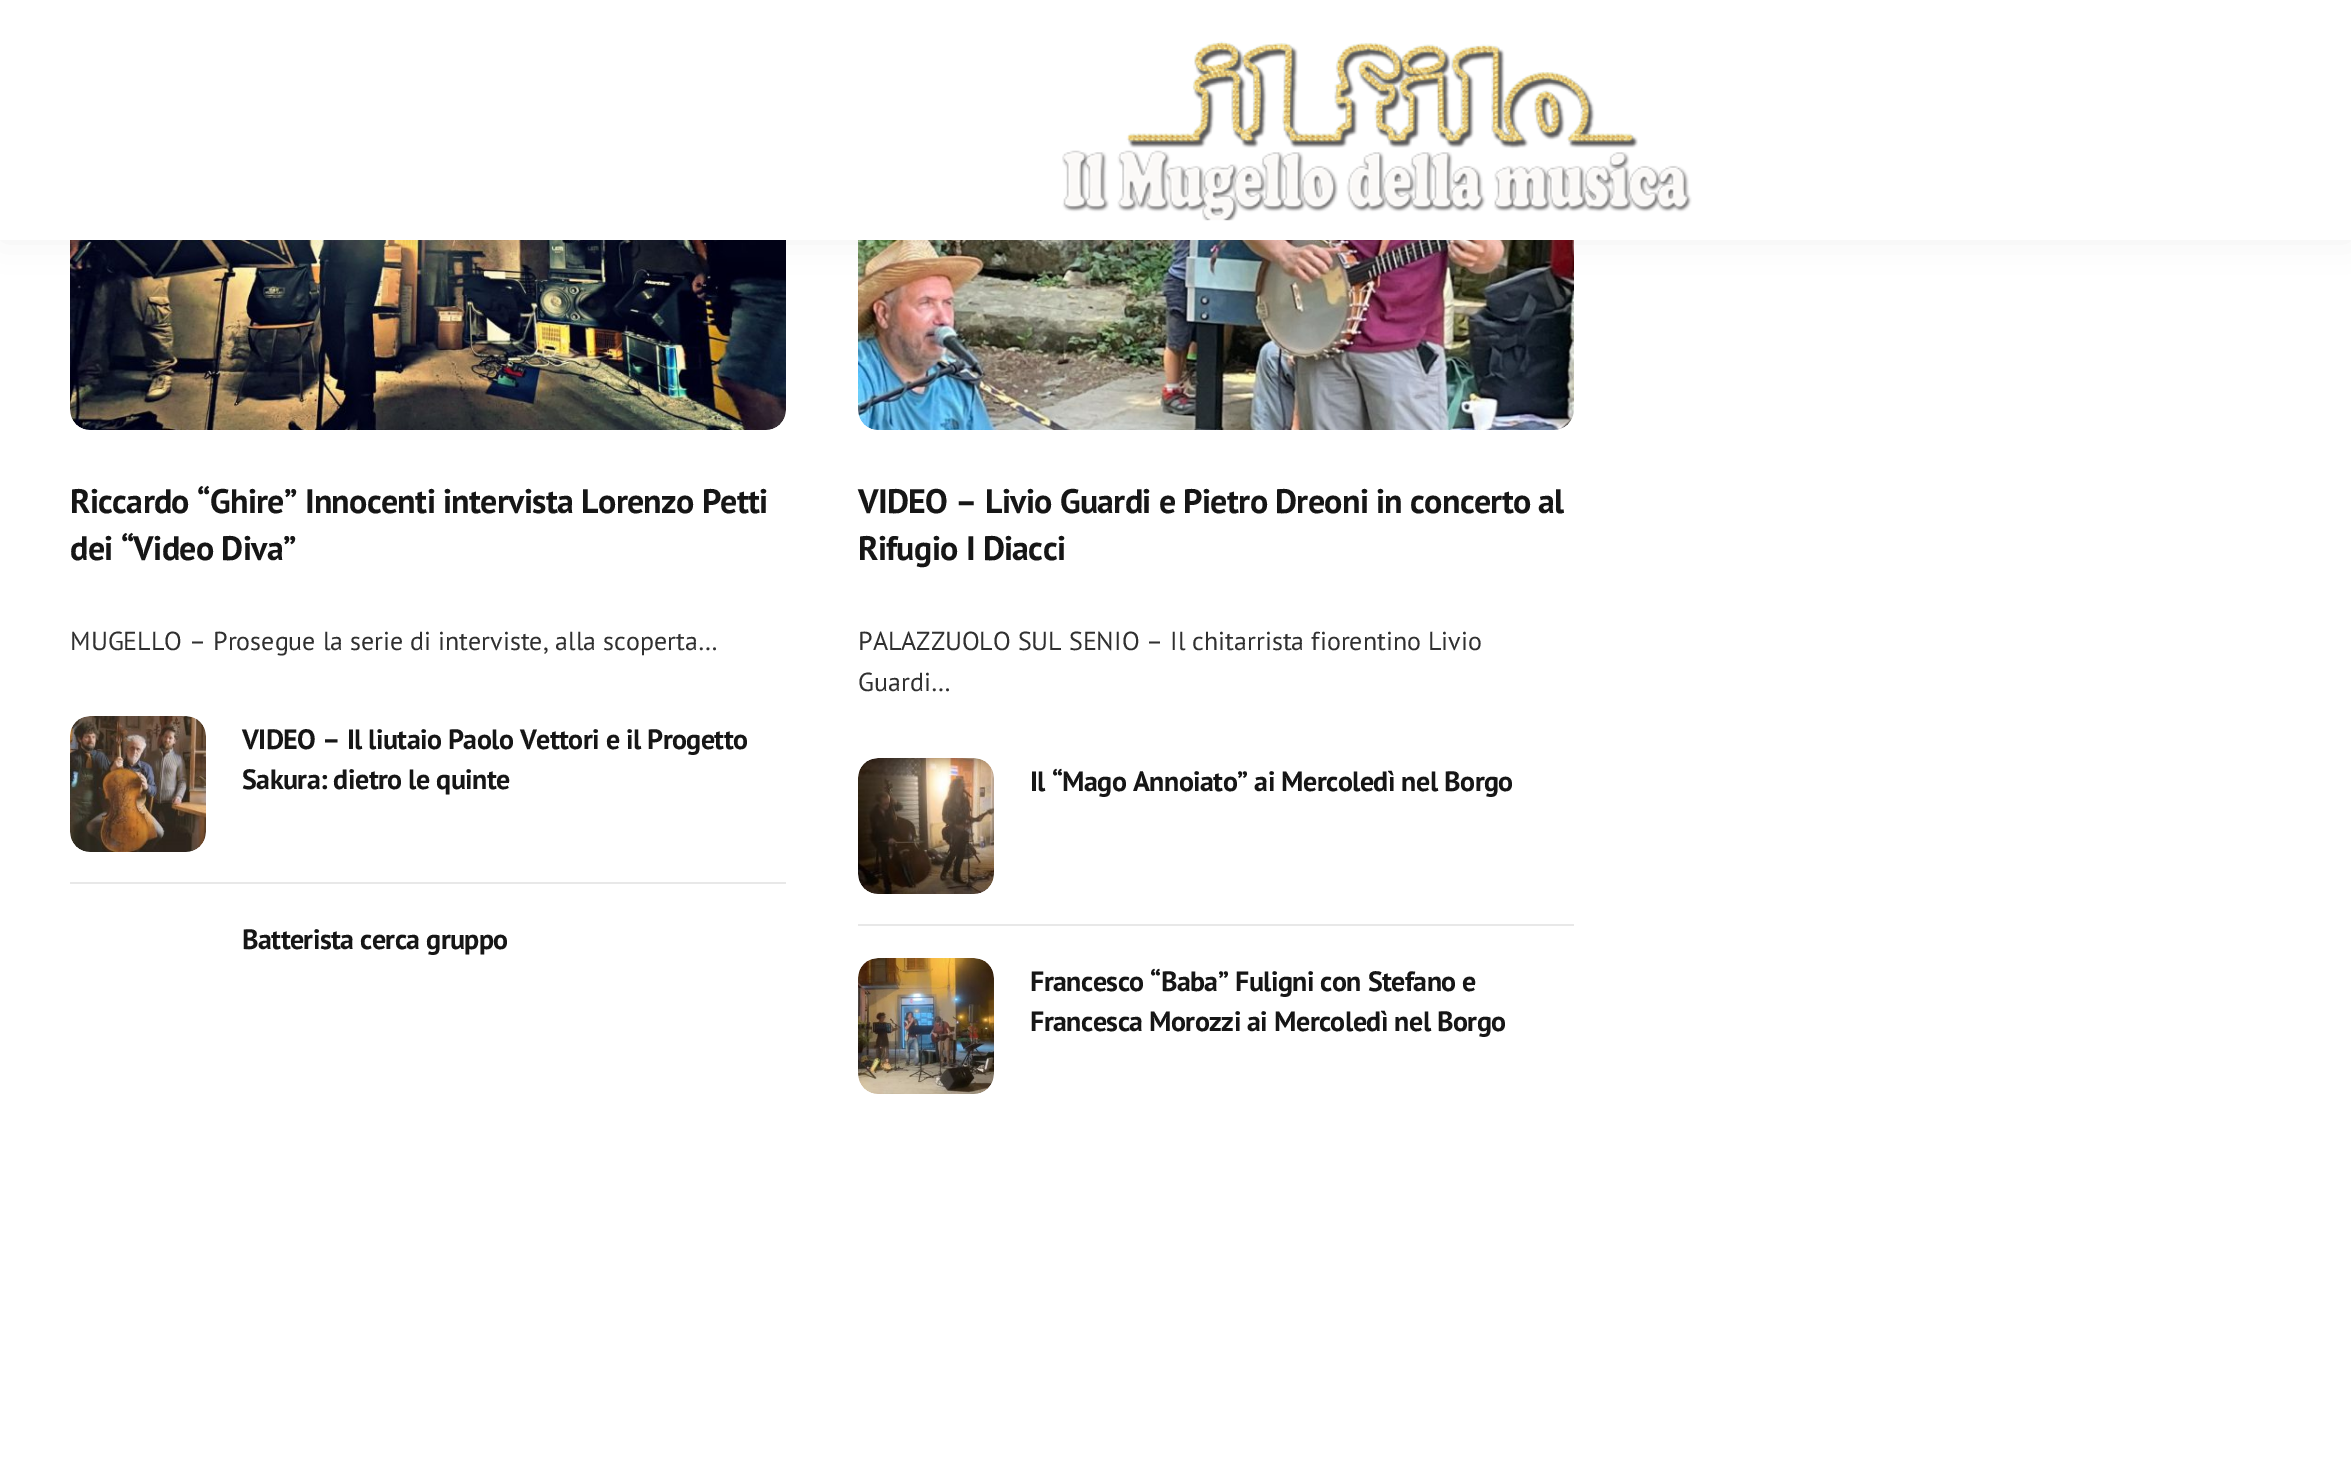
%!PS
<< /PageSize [2351 1462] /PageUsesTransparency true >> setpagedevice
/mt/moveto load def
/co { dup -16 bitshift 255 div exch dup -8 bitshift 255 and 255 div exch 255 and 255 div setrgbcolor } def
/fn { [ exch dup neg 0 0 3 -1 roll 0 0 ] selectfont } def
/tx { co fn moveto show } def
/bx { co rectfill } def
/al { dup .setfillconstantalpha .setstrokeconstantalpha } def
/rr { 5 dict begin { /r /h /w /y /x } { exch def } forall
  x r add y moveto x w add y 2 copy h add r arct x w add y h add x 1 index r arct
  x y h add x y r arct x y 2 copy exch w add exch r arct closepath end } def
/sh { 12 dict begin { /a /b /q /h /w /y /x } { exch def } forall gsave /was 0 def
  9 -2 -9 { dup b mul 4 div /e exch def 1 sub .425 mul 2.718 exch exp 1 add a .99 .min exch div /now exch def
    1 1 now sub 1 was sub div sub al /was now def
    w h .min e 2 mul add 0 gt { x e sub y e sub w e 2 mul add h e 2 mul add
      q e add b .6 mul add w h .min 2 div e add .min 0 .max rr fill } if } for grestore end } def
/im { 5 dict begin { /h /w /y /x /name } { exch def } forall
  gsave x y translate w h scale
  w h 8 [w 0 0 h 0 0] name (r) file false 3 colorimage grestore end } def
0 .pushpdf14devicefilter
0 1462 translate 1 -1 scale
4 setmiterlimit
0 0 2351 1462 16#FFFFFF bx
(media/2.raw) 70 240 716 190 im
(media/4.raw) 858 240 716 190 im
16#000000 co
0 0 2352 240 0 20 .05 sh
0 0 2351 240 16#FFFFFF bx
(media/1.raw) 1062 41 630 180 im
(media/3.raw) 70 716 136 136 im
70 882 716 2 16#E8E8E8 bx
(media/5.raw) 858 758 136 136 im
858 924 716 2 16#E8E8E8 bx
(media/6.raw) 858 958 136 136 im
/PTSans-Bold 34 fn
16#161616 co
70 513 mt -.68 0 (Riccardo “Ghire” Innocenti intervista Lorenzo Petti) ashow
70 560 mt -.68 0 (dei “Video Diva”) ashow
(MUGELLO – Prosegue la serie di interviste, alla scoperta…) 70 650 /PTSans-Regular 26 16#303030 tx
/PTSans-Bold 28 fn
16#161616 co
242 749 mt -.55 0 (VIDEO – Il liutaio Paolo Vettori e il Progetto) ashow
242 789 mt -.55 0 (Sakura: dietro le quinte) ashow
242 949 mt -.55 0 (Batterista cerca gruppo) ashow
/PTSans-Bold 34 fn
858 513 mt -.68 0 (VIDEO – Livio Guardi e Pietro Dreoni in concerto al) ashow
858 560 mt -.68 0 (Rifugio I Diacci) ashow
(PALAZZUOLO SUL SENIO – Il chitarrista fiorentino Livio) 858 650 /PTSans-Regular 26 16#303030 tx
(Guardi…) 858 691 /PTSans-Regular 26 16#303030 tx
/PTSans-Bold 28 fn
16#161616 co
1030 791 mt -.55 0 (Il “Mago Annoiato” ai Mercoledì nel Borgo) ashow
1030 991 mt -.55 0 (Francesco “Baba” Fuligni con Stefano e) ashow
1030 1031 mt -.55 0 (Francesca Morozzi ai Mercoledì nel Borgo) ashow
.poppdf14devicefilter showpage
